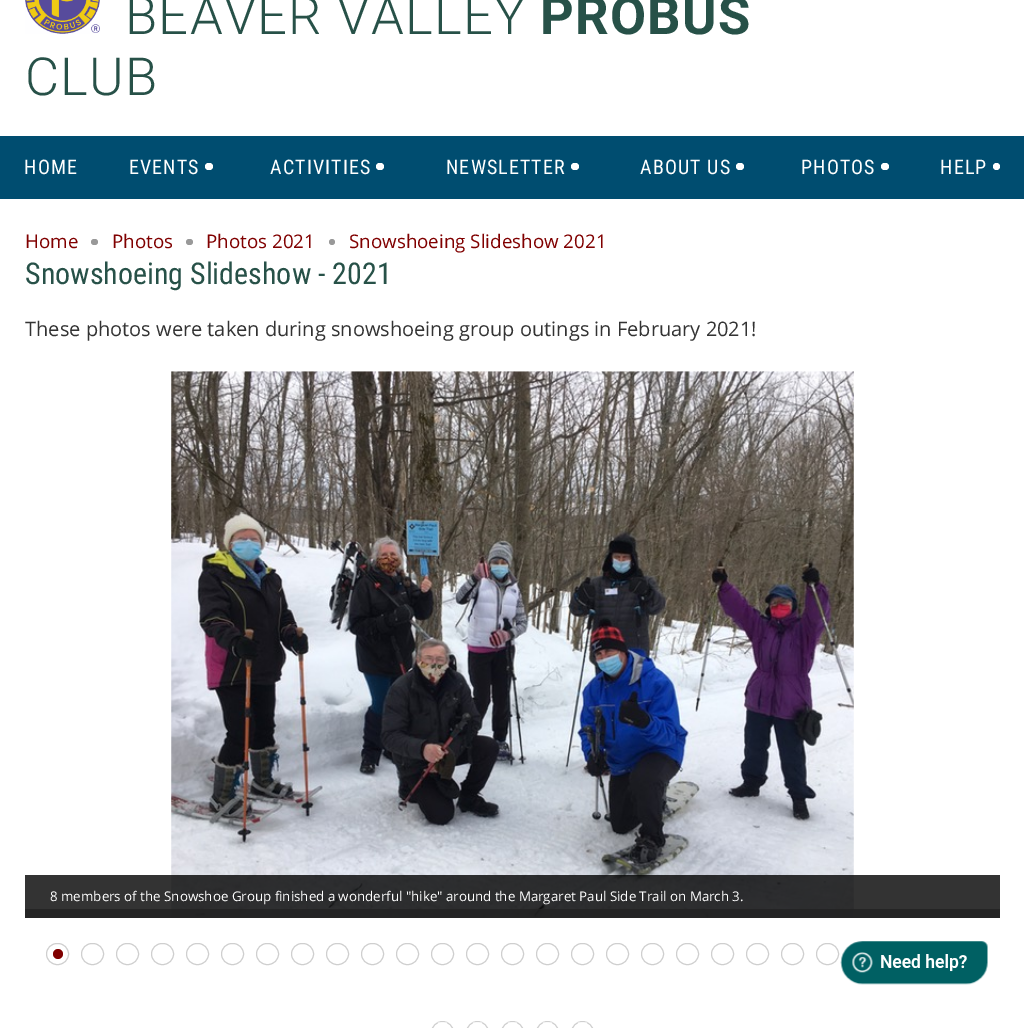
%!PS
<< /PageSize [1024 1028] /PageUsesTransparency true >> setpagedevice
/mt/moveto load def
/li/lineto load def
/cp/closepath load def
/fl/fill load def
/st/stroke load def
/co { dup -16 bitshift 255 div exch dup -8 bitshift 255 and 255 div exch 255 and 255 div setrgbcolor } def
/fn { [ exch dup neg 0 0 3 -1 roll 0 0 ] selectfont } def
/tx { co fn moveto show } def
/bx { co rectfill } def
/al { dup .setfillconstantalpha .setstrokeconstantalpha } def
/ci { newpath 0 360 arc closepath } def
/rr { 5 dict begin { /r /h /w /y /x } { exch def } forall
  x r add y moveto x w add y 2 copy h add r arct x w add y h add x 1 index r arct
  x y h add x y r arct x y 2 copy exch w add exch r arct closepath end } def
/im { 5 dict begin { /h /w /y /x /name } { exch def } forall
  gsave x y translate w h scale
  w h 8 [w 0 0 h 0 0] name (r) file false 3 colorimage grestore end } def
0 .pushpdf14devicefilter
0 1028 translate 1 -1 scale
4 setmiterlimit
0 0 1024 1028 16#FFFFFF bx
(media/1.raw) 25 0 75 34 im
0 136 1024 63 16#004D70 bx
16#FFFFFF co
205 163 8 7 3.5 rr fl
376 163 8 7 3.5 rr fl
571 163 8 7 3.5 rr fl
736 163 8 7 3.5 rr fl
881 163 8 7 3.5 rr fl
996.5 166.5 3.5 ci fl
16#999999 co
91 239 7 6 3 rr fl
186 239 7 6 3 rr fl
332 242 3 ci fl
(media/2.raw) 171 371 683 547 im
0.8 al
25 875 975 43 16#000000 bx
25 909 975 9 16#222222 bx
1 al
16#CFCFCF co
46.5 943.5 22 21 10.5 rr st
16#800000 co
58 954 5 ci fl
16#CFCFCF co
81.5 943.5 22 21 10.5 rr st
116.5 943.5 22 21 10.5 rr st
151.5 943.5 22 21 10.5 rr st
186.5 943.5 22 21 10.5 rr st
221.5 943.5 22 21 10.5 rr st
256.5 943.5 22 21 10.5 rr st
291.5 943.5 22 21 10.5 rr st
326.5 943.5 22 21 10.5 rr st
361.5 943.5 22 21 10.5 rr st
396.5 943.5 22 21 10.5 rr st
431.5 943.5 22 21 10.5 rr st
466.5 943.5 22 21 10.5 rr st
501.5 943.5 22 21 10.5 rr st
536.5 943.5 22 21 10.5 rr st
571.5 943.5 22 21 10.5 rr st
606.5 943.5 22 21 10.5 rr st
641.5 943.5 22 21 10.5 rr st
676.5 943.5 22 21 10.5 rr st
711.5 943.5 22 21 10.5 rr st
746.5 943.5 22 21 10.5 rr st
781.5 943.5 22 21 10.5 rr st
816.5 943.5 22 21 10.5 rr st
431.5 1021.5 22 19 11 rr st
16#FFFFFF co
437.5 1022.5 mt 447.5 1022.5 li 442.5 1027.5 li cp fl
16#CFCFCF co
466.5 1021.5 22 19 11 rr st
16#FFFFFF co
472.5 1022.5 mt 482.5 1022.5 li 477.5 1027.5 li cp fl
16#CFCFCF co
501.5 1021.5 22 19 11 rr st
16#FFFFFF co
507.5 1022.5 mt 517.5 1022.5 li 512.5 1027.5 li cp fl
16#CFCFCF co
536.5 1021.5 22 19 11 rr st
16#FFFFFF co
542.5 1022.5 mt 552.5 1022.5 li 547.5 1027.5 li cp fl
16#CFCFCF co
571.5 1021.5 22 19 11 rr st
16#FFFFFF co
577.5 1022.5 mt 587.5 1022.5 li 582.5 1027.5 li cp fl
(media/3.raw) 840 941 148 44 im
/Roboto-Light 52.5 fn
16#275148 co
125 34 mt 1.25 0 (BEAVER VALLEY) ashow
/Roboto-Bold 52.5 fn
540 34 mt 1.25 0 (PROBUS) ashow
/Roboto-Light 52.5 fn
25 95 mt 1.25 0 (CLUB) ashow
/RobotoCondensed-Regular 20 fn
16#FFFFFF co
24 174 mt 1.1 0 (HOME) ashow
129 174 mt 1.1 0 (EVENTS) ashow
270 174 mt 1.1 0 (ACTIVITIES) ashow
446 174 mt 1.1 0 (NEWSLETTER) ashow
640 174 mt 1.1 0 (ABOUT US) ashow
801 174 mt 1.1 0 (PHOTOS) ashow
940 174 mt 1.1 0 (HELP) ashow
(Home) 25 248 /OpenSans-Regular 18.75 16#800000 tx
(Photos) 112 248 /OpenSans-Regular 18.75 16#800000 tx
(Photos 2021) 206 248 /OpenSans-Regular 18.75 16#800000 tx
(Snowshoeing Slideshow 2021) 349 248 /OpenSans-Regular 18.75 16#800000 tx
(Snowshoeing Slideshow - 2021) 25 284 /RobotoCondensed-Regular 30 16#275148 tx
(These photos were taken during snowshoeing group outings in February 2021!) 25 336 /OpenSans-Regular 20 16#333333 tx
(8 members of the Snowshoe Group finished a wonderful "hike" around the Margaret Paul Side Trail on March 3.) 50 901 /OpenSans-Regular 13.33 16#FFFFFF tx
.poppdf14devicefilter showpage
